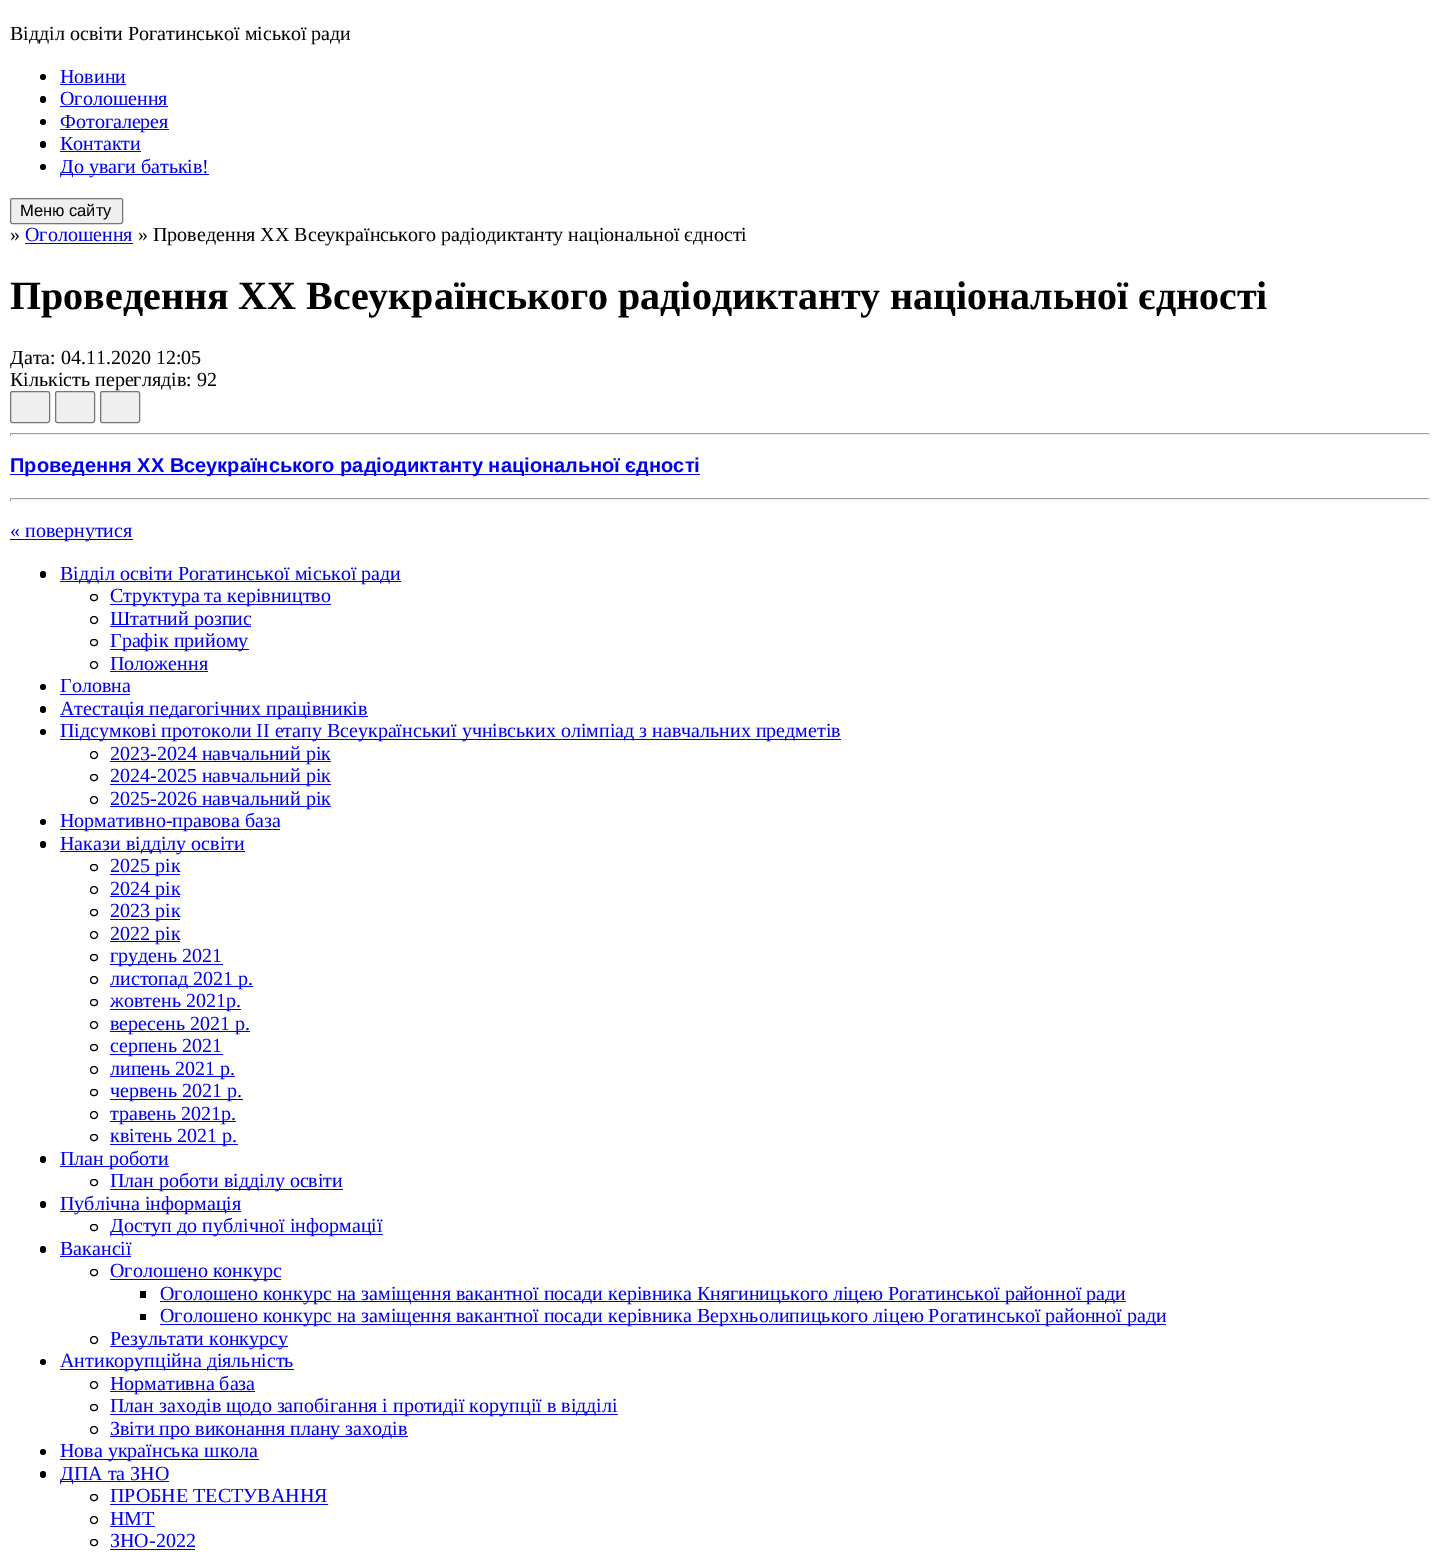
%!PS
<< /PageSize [1440 1556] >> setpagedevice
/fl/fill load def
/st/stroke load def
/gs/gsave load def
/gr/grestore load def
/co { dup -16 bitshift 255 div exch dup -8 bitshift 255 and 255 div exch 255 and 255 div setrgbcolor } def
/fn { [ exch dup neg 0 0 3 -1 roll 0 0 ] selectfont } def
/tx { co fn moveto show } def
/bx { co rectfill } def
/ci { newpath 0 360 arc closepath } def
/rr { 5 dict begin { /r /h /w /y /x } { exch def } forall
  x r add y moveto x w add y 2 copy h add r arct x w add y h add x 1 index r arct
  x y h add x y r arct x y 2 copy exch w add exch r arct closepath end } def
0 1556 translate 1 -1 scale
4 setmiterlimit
0 0 1440 1556 16#FFFFFF bx
16#000000 co
43 77 3 ci fl
60 84 66 1 16#0000EE bx
16#000000 co
40 96 6 7 3 rr fl
60 106 108 1 16#0000EE bx
16#000000 co
43 122 3 ci fl
60 129 109 1 16#0000EE bx
16#000000 co
40 141 6 7 3 rr fl
60 151 81 1 16#0000EE bx
16#000000 co
43 167 3 ci fl
60 174 149 1 16#0000EE bx
16#EFEFEF co
10.5 198.5 112 25 2 rr gs fl gr
16#767676 co
st
25 243 108 1 16#0000EE bx
16#EFEFEF co
10.5 391.5 39 31 2 rr gs fl gr
16#767676 co
st
16#EFEFEF co
55.5 391.5 39 31 2 rr gs fl gr
16#767676 co
st
16#EFEFEF co
100.5 391.5 39 31 2 rr gs fl gr
16#767676 co
st
10 433 1420 1 16#9F9F9F bx
1429 433 1 3 16#EEEEEE bx
10 434 1420 1 16#EEEEEE bx
10 433 1 3 16#9F9F9F bx
10 474 690 1 16#0000EE bx
10 498 1420 1 16#9F9F9F bx
1429 498 1 3 16#EEEEEE bx
10 499 1420 1 16#EEEEEE bx
10 498 1 3 16#9F9F9F bx
10 539 123 1 16#0000EE bx
16#000000 co
40 571 6 7 3 rr fl
60 581 341 1 16#0000EE bx
16#000000 co
90.5 594.5 7 6 3 rr st
110 604 221 1 16#0000EE bx
16#000000 co
94 620 3.5 ci st
110 626 141 1 16#0000EE bx
16#000000 co
90.5 639.5 7 6 3 rr st
110 649 139 1 16#0000EE bx
16#000000 co
94 665 3.5 ci st
110 671 98 1 16#0000EE bx
16#000000 co
43 687 3 ci fl
60 694 70 1 16#0000EE bx
16#000000 co
40 706 6 7 3 rr fl
60 716 308 1 16#0000EE bx
16#000000 co
43 732 3 ci fl
60 739 781 1 16#0000EE bx
16#000000 co
94 755 3.5 ci st
110 761 221 1 16#0000EE bx
16#000000 co
90.5 774.5 7 6 3 rr st
110 784 221 1 16#0000EE bx
16#000000 co
94 800 3.5 ci st
110 806 221 1 16#0000EE bx
16#000000 co
43 822 3 ci fl
60 829 220 1 16#0000EE bx
16#000000 co
40 841 6 7 3 rr fl
60 851 185 1 16#0000EE bx
16#000000 co
90.5 864.5 7 6 3 rr st
110 874 70 1 16#0000EE bx
16#000000 co
94 890 3.5 ci st
110 896 70 1 16#0000EE bx
16#000000 co
90.5 909.5 7 6 3 rr st
110 919 70 1 16#0000EE bx
16#000000 co
94 935 3.5 ci st
110 941 70 1 16#0000EE bx
16#000000 co
90.5 954.5 7 6 3 rr st
110 964 113 1 16#0000EE bx
16#000000 co
94 980 3.5 ci st
110 986 143 1 16#0000EE bx
16#000000 co
90.5 999.5 7 6 3 rr st
110 1009 131 1 16#0000EE bx
16#000000 co
94 1025 3.5 ci st
110 1031 140 1 16#0000EE bx
16#000000 co
90.5 1044.5 7 6 3 rr st
110 1054 113 1 16#0000EE bx
16#000000 co
94 1070 3.5 ci st
110 1076 125 1 16#0000EE bx
16#000000 co
90.5 1089.5 7 6 3 rr st
110 1099 133 1 16#0000EE bx
16#000000 co
94 1115 3.5 ci st
110 1121 126 1 16#0000EE bx
16#000000 co
90.5 1134.5 7 6 3 rr st
110 1144 128 1 16#0000EE bx
16#000000 co
40 1156 6 7 3 rr fl
60 1166 109 1 16#0000EE bx
16#000000 co
90.5 1179.5 7 6 3 rr st
110 1189 233 1 16#0000EE bx
16#000000 co
40 1201 6 7 3 rr fl
60 1211 181 1 16#0000EE bx
16#000000 co
90.5 1224.5 7 6 3 rr st
110 1234 273 1 16#0000EE bx
16#000000 co
40 1246 6 7 3 rr fl
60 1256 71 1 16#0000EE bx
16#000000 co
90.5 1269.5 7 6 3 rr st
110 1279 171 1 16#0000EE bx
140 1291 6 7 16#000000 bx
160 1301 966 1 16#0000EE bx
140 1314 6 6 16#000000 bx
160 1324 1006 1 16#0000EE bx
16#000000 co
94 1340 3.5 ci st
110 1346 178 1 16#0000EE bx
16#000000 co
43 1362 3 ci fl
60 1369 234 1 16#0000EE bx
16#000000 co
94 1385 3.5 ci st
110 1391 145 1 16#0000EE bx
16#000000 co
90.5 1404.5 7 6 3 rr st
110 1414 508 1 16#0000EE bx
16#000000 co
94 1430 3.5 ci st
110 1436 298 1 16#0000EE bx
16#000000 co
43 1452 3 ci fl
60 1459 199 1 16#0000EE bx
16#000000 co
40 1471 6 7 3 rr fl
60 1481 109 1 16#0000EE bx
16#000000 co
90.5 1494.5 7 6 3 rr st
110 1504 218 1 16#0000EE bx
16#000000 co
94 1520 3.5 ci st
110 1526 45 1 16#0000EE bx
16#000000 co
90.5 1539.5 7 6 3 rr st
110 1549 85 1 16#0000EE bx
(Відділ освіти Рогатинської міської ради) 10 40 /LiberationSerif-Regular 20 16#000000 tx
(Новини) 60 83 /LiberationSerif-Regular 20 16#0000EE tx
(Оголошення) 60 105 /LiberationSerif-Regular 20 16#0000EE tx
(Фотогалерея) 60 128 /LiberationSerif-Regular 20 16#0000EE tx
(Контакти) 60 150 /LiberationSerif-Regular 20 16#0000EE tx
(До уваги батьків!) 60 173 /LiberationSerif-Regular 20 16#0000EE tx
(Меню сайту) 20 216 /LiberationSans-Regular 16.5 16#000000 tx
(») 10 241 /LiberationSerif-Regular 20 16#000000 tx
(Оголошення) 25 241 /LiberationSerif-Regular 20 16#0000EE tx
(» Проведення ХХ Всеукраїнського радіодиктанту національної єдності) 138 241 /LiberationSerif-Regular 20 16#000000 tx
(Проведення ХХ Всеукраїнського радіодиктанту національної єдності) 10 309 /LiberationSerif-Bold 40 16#000000 tx
(Дата: 04.11.2020 12:05) 10 364 /LiberationSerif-Regular 20 16#000000 tx
(Кількість переглядів: 92) 10 386 /LiberationSerif-Regular 20 16#000000 tx
(Проведення ХХ Всеукраїнського радіодиктанту національної єдності) 10 472 /LiberationSans-Bold 20 16#0000EE tx
(« повернутися) 10 537 /LiberationSerif-Regular 20 16#0000EE tx
(Відділ освіти Рогатинської міської ради) 60 580 /LiberationSerif-Regular 20 16#0000EE tx
(Структура та керівництво) 110 602 /LiberationSerif-Regular 20 16#0000EE tx
(Штатний розпис) 110 625 /LiberationSerif-Regular 20 16#0000EE tx
(Графік прийому) 110 647 /LiberationSerif-Regular 20 16#0000EE tx
(Положення) 110 670 /LiberationSerif-Regular 20 16#0000EE tx
(Головна) 60 692 /LiberationSerif-Regular 20 16#0000EE tx
(Атестація педагогічних працівників) 60 715 /LiberationSerif-Regular 20 16#0000EE tx
(Підсумкові протоколи ІІ етапу Всеукраїнськиї учнівських олімпіад з навчальних предметів) 60 737 /LiberationSerif-Regular 20 16#0000EE tx
(2023-2024 навчальний рік) 110 760 /LiberationSerif-Regular 20 16#0000EE tx
(2024-2025 навчальний рік) 110 782 /LiberationSerif-Regular 20 16#0000EE tx
(2025-2026 навчальний рік) 110 805 /LiberationSerif-Regular 20 16#0000EE tx
(Нормативно-правова база) 60 827 /LiberationSerif-Regular 20 16#0000EE tx
(Накази відділу освіти) 60 850 /LiberationSerif-Regular 20 16#0000EE tx
(2025 рік) 110 872 /LiberationSerif-Regular 20 16#0000EE tx
(2024 рік) 110 895 /LiberationSerif-Regular 20 16#0000EE tx
(2023 рік) 110 917 /LiberationSerif-Regular 20 16#0000EE tx
(2022 рік) 110 940 /LiberationSerif-Regular 20 16#0000EE tx
(грудень 2021) 110 962 /LiberationSerif-Regular 20 16#0000EE tx
(листопад 2021 р.) 110 985 /LiberationSerif-Regular 20 16#0000EE tx
(жовтень 2021р.) 110 1007 /LiberationSerif-Regular 20 16#0000EE tx
(вересень 2021 р.) 110 1030 /LiberationSerif-Regular 20 16#0000EE tx
(серпень 2021) 110 1052 /LiberationSerif-Regular 20 16#0000EE tx
(липень 2021 р.) 110 1075 /LiberationSerif-Regular 20 16#0000EE tx
(червень 2021 р.) 110 1097 /LiberationSerif-Regular 20 16#0000EE tx
(травень 2021р.) 110 1120 /LiberationSerif-Regular 20 16#0000EE tx
(квітень 2021 р.) 110 1142 /LiberationSerif-Regular 20 16#0000EE tx
(План роботи) 60 1165 /LiberationSerif-Regular 20 16#0000EE tx
(План роботи відділу освіти) 110 1187 /LiberationSerif-Regular 20 16#0000EE tx
(Публічна інформація) 60 1210 /LiberationSerif-Regular 20 16#0000EE tx
(Доступ до публічної інформації) 110 1232 /LiberationSerif-Regular 20 16#0000EE tx
(Вакансії) 60 1255 /LiberationSerif-Regular 20 16#0000EE tx
(Оголошено конкурс) 110 1277 /LiberationSerif-Regular 20 16#0000EE tx
(Оголошено конкурс на заміщення вакантної посади керівника Княгиницького ліцею Рогатинської районної ради) 160 1300 /LiberationSerif-Regular 20 16#0000EE tx
(Оголошено конкурс на заміщення вакантної посади керівника Верхньолипицького ліцею Рогатинської районної ради) 160 1322 /LiberationSerif-Regular 20 16#0000EE tx
(Результати конкурсу) 110 1345 /LiberationSerif-Regular 20 16#0000EE tx
(Антикорупційна діяльність) 60 1367 /LiberationSerif-Regular 20 16#0000EE tx
(Нормативна база) 110 1390 /LiberationSerif-Regular 20 16#0000EE tx
(План заходів щодо запобігання і протидії корупції в відділі) 110 1412 /LiberationSerif-Regular 20 16#0000EE tx
(Звіти про виконання плану заходів) 110 1435 /LiberationSerif-Regular 20 16#0000EE tx
(Нова українська школа) 60 1457 /LiberationSerif-Regular 20 16#0000EE tx
(ДПА та ЗНО) 60 1480 /LiberationSerif-Regular 20 16#0000EE tx
(ПРОБНЕ ТЕСТУВАННЯ) 110 1502 /LiberationSerif-Regular 20 16#0000EE tx
(НМТ) 110 1525 /LiberationSerif-Regular 20 16#0000EE tx
(ЗНО-2022) 110 1547 /LiberationSerif-Regular 20 16#0000EE tx
showpage
